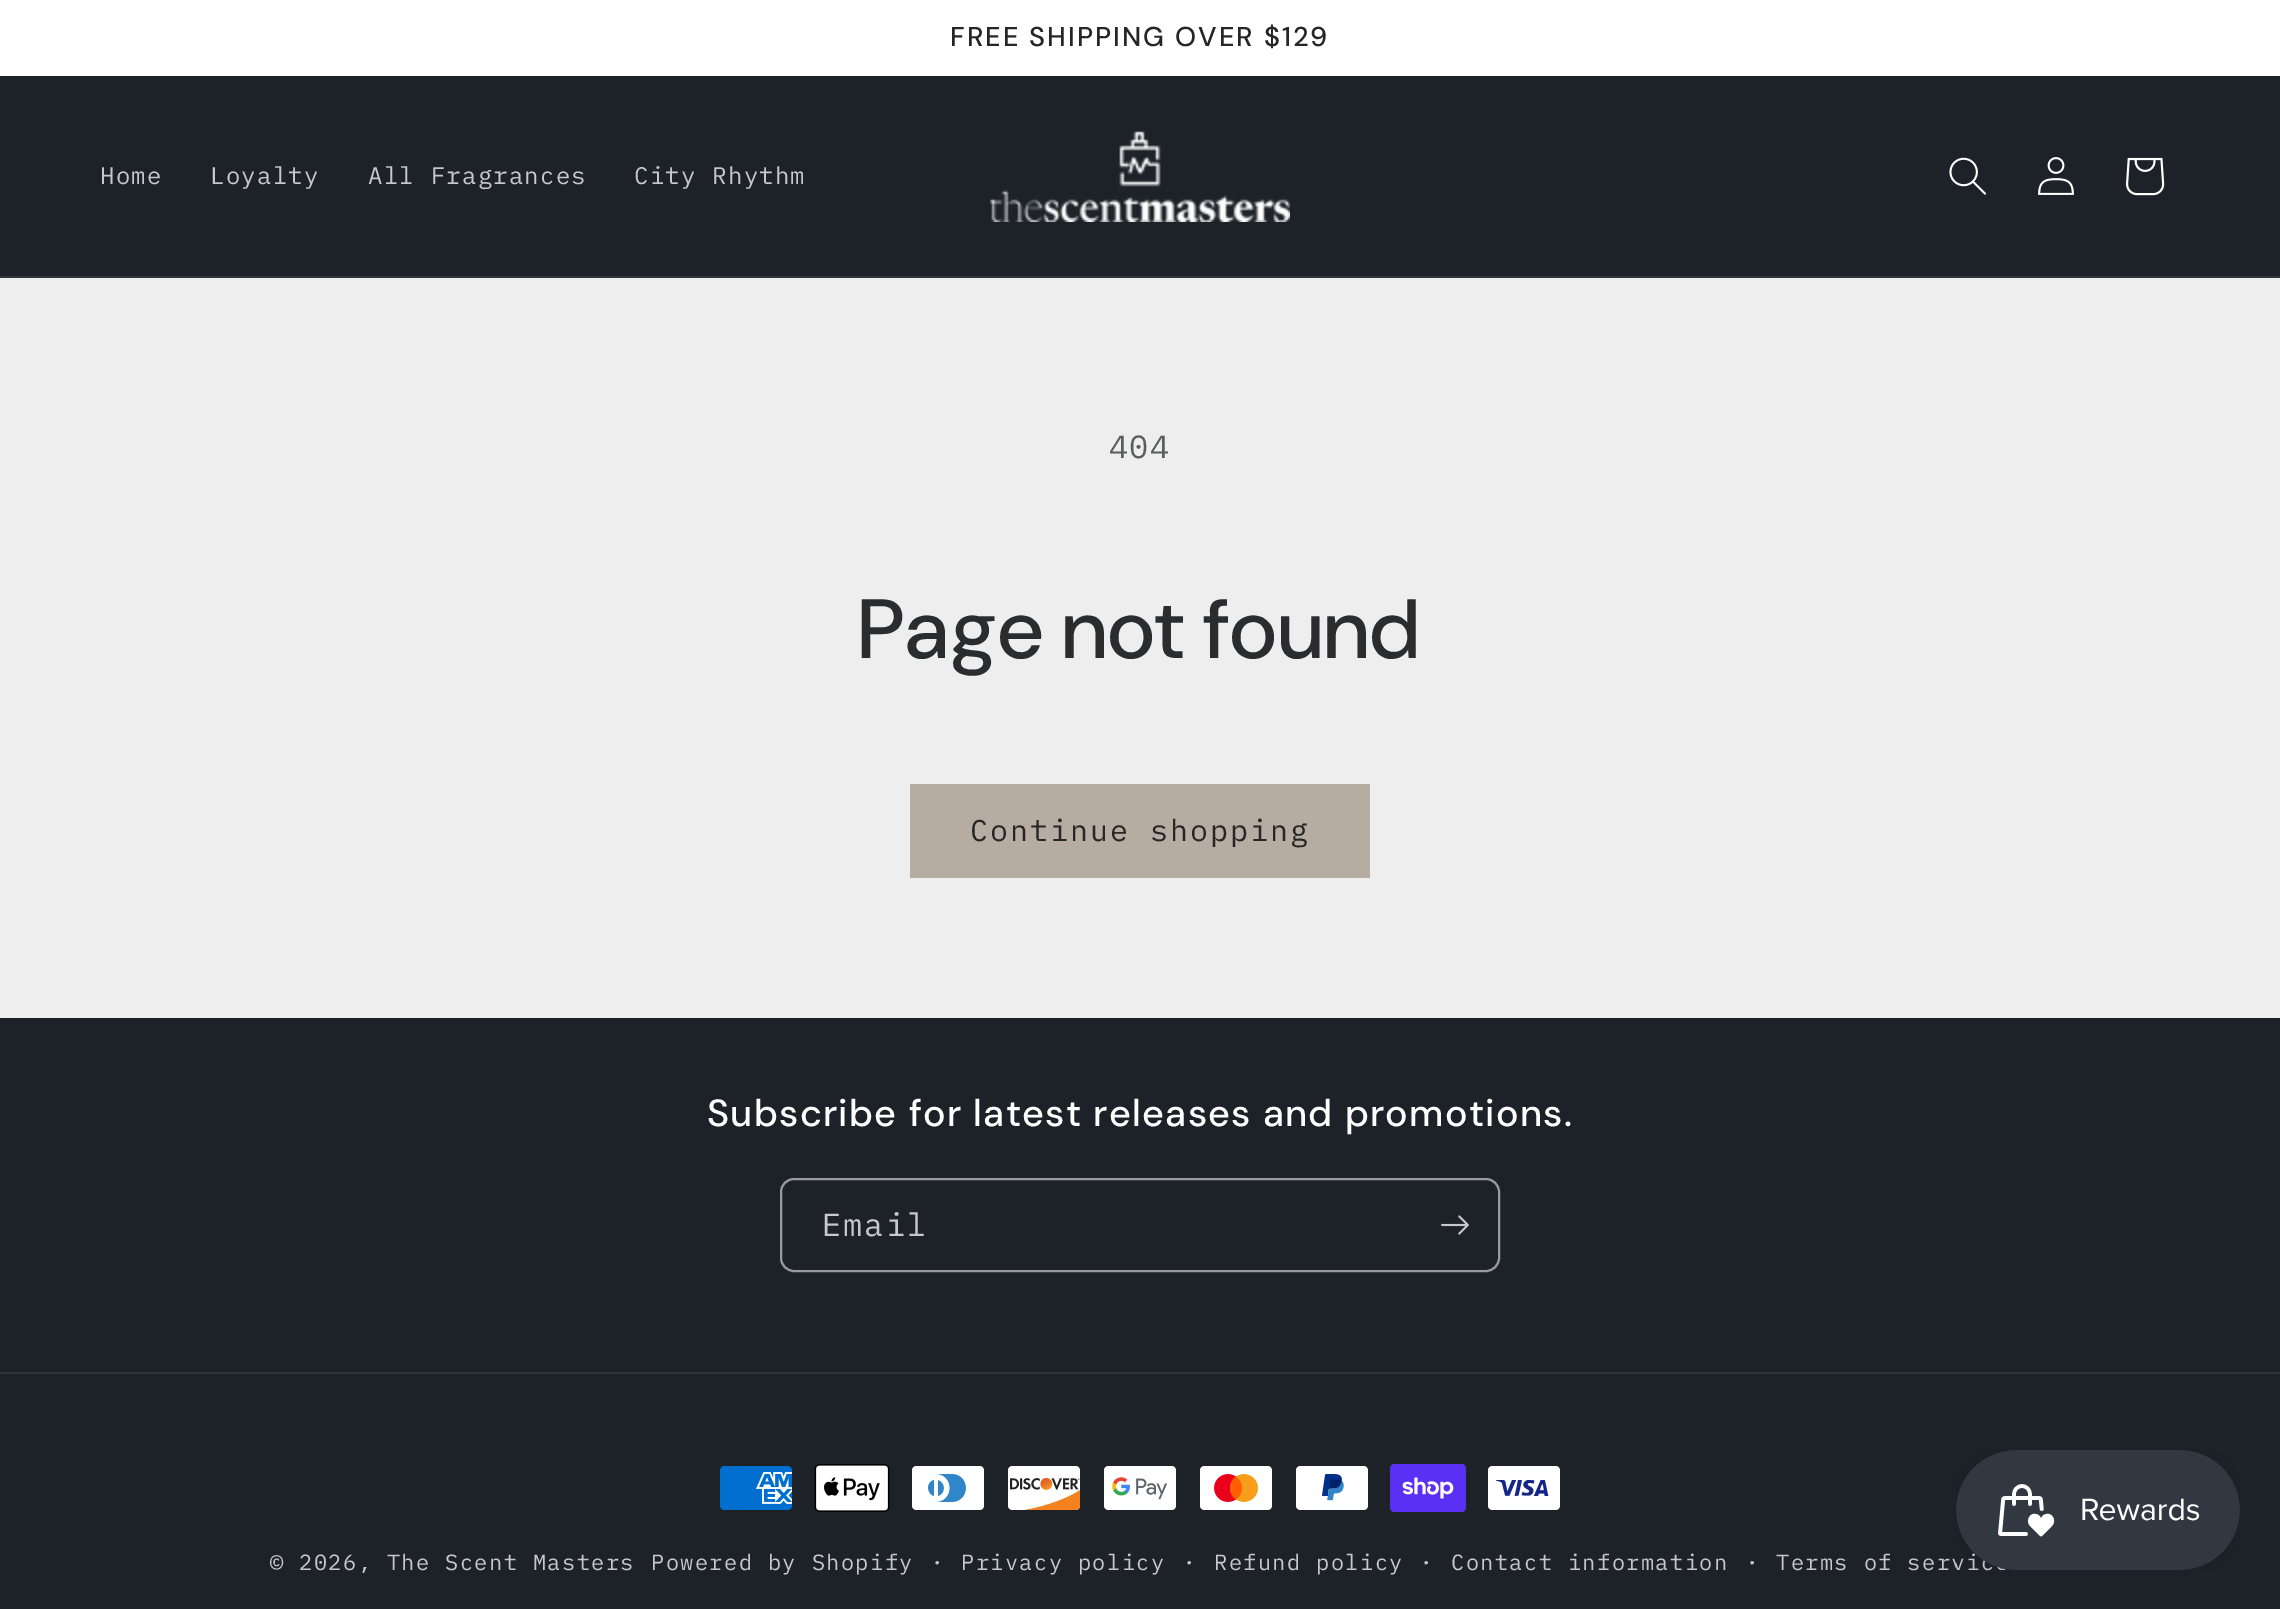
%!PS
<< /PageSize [2280 1609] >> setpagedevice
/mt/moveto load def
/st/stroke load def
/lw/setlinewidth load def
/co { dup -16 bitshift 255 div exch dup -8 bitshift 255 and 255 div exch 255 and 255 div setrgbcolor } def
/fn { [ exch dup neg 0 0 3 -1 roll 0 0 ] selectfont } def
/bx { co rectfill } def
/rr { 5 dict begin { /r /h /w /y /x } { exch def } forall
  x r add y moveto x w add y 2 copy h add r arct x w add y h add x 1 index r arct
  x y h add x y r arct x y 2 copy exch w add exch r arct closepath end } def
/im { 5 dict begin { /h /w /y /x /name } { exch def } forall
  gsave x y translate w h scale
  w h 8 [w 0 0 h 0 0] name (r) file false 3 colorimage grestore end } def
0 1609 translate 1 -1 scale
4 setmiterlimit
0 0 2280 1609 16#EEEEEE bx
0 0 2280 76 16#FFFFFF bx
0 76 2280 200 16#1C2228 bx
0 276 2280 2 16#2E3439 bx
(media/1.raw) 990 131 300 91 im
(media/2.raw) 1949 157 37 38 im
(media/3.raw) 2038 157 36 38 im
(media/4.raw) 2126 157 39 39 im
910 784 460 94 16#B7ACA2 bx
0 1018 2280 591 16#1C2228 bx
16#999C9E co
2 lw
781 1179 718 92 13 rr st
(media/5.raw) 1441 1215 28 20 im
0 1372 2280 2 16#2E3439 bx
(media/6.raw) 720 1466 72 44 im
(media/7.raw) 814 1464 76 48 im
(media/8.raw) 912 1466 72 44 im
(media/9.raw) 1008 1466 73 44 im
(media/10.raw) 1104 1466 72 44 im
(media/11.raw) 1200 1466 72 44 im
(media/12.raw) 1296 1466 72 44 im
(media/13.raw) 1390 1464 76 48 im
(media/14.raw) 1488 1466 72 44 im
/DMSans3-Medium 27.25 fn
16#262626 co
950 46 mt 2 0 (FREE SHIPPING OVER $129) ashow
/IBMPlexMono-Regular 24 fn
16#C6C8C9 co
100 184 mt 1.25 0 (Home) ashow
210 184 mt 1.25 0 (Loyalty) ashow
368 184 mt 1.25 0 (All Fragrances) ashow
634 184 mt 1.25 0 (City Rhythm) ashow
/IBMPlexMono-Regular 32 fn
16#5C5D5D co
1109 458 mt 1.25 0 (404) ashow
/DMSans-Medium 84 fn
16#2B2C2D co
858 658 mt 1.25 0 (Page not found) ashow
/IBMPlexMono-Regular 30 fn
16#262626 co
970 841 mt 2 0 (Continue shopping) ashow
/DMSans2-Medium 37.8 fn
16#FFFFFF co
707 1126 mt 1.25 0 (Subscribe for latest releases and promotions.) ashow
/IBMPlexMono-Regular 32 fn
16#C6C8C9 co
822 1236 mt 2 0 (Email) ashow
/IBMPlexMono-Regular 22 fn
270 1570 mt 1.4 0 (© 2026, The Scent Masters) ashow
651 1570 mt 1.4 0 (Powered by Shopify) ashow
/IBMPlexMono-Regular 24 fn
930 1570 mt 1.4 0 (·) ashow
/IBMPlexMono-Regular 22 fn
961 1570 mt 1.4 0 (Privacy policy) ashow
/IBMPlexMono-Regular 24 fn
1182 1570 mt 1.4 0 (·) ashow
/IBMPlexMono-Regular 22 fn
1214 1570 mt 1.4 0 (Refund policy) ashow
/IBMPlexMono-Regular 24 fn
1419 1570 mt 1.4 0 (·) ashow
/IBMPlexMono-Regular 22 fn
1451 1570 mt 1.4 0 (Contact information) ashow
/IBMPlexMono-Regular 24 fn
1745 1570 mt 1.4 0 (·) ashow
/IBMPlexMono-Regular 22 fn
1776 1570 mt 1.4 0 (Terms of servic) ashow
(media/15.raw) 1956 1450 284 120 im
showpage
